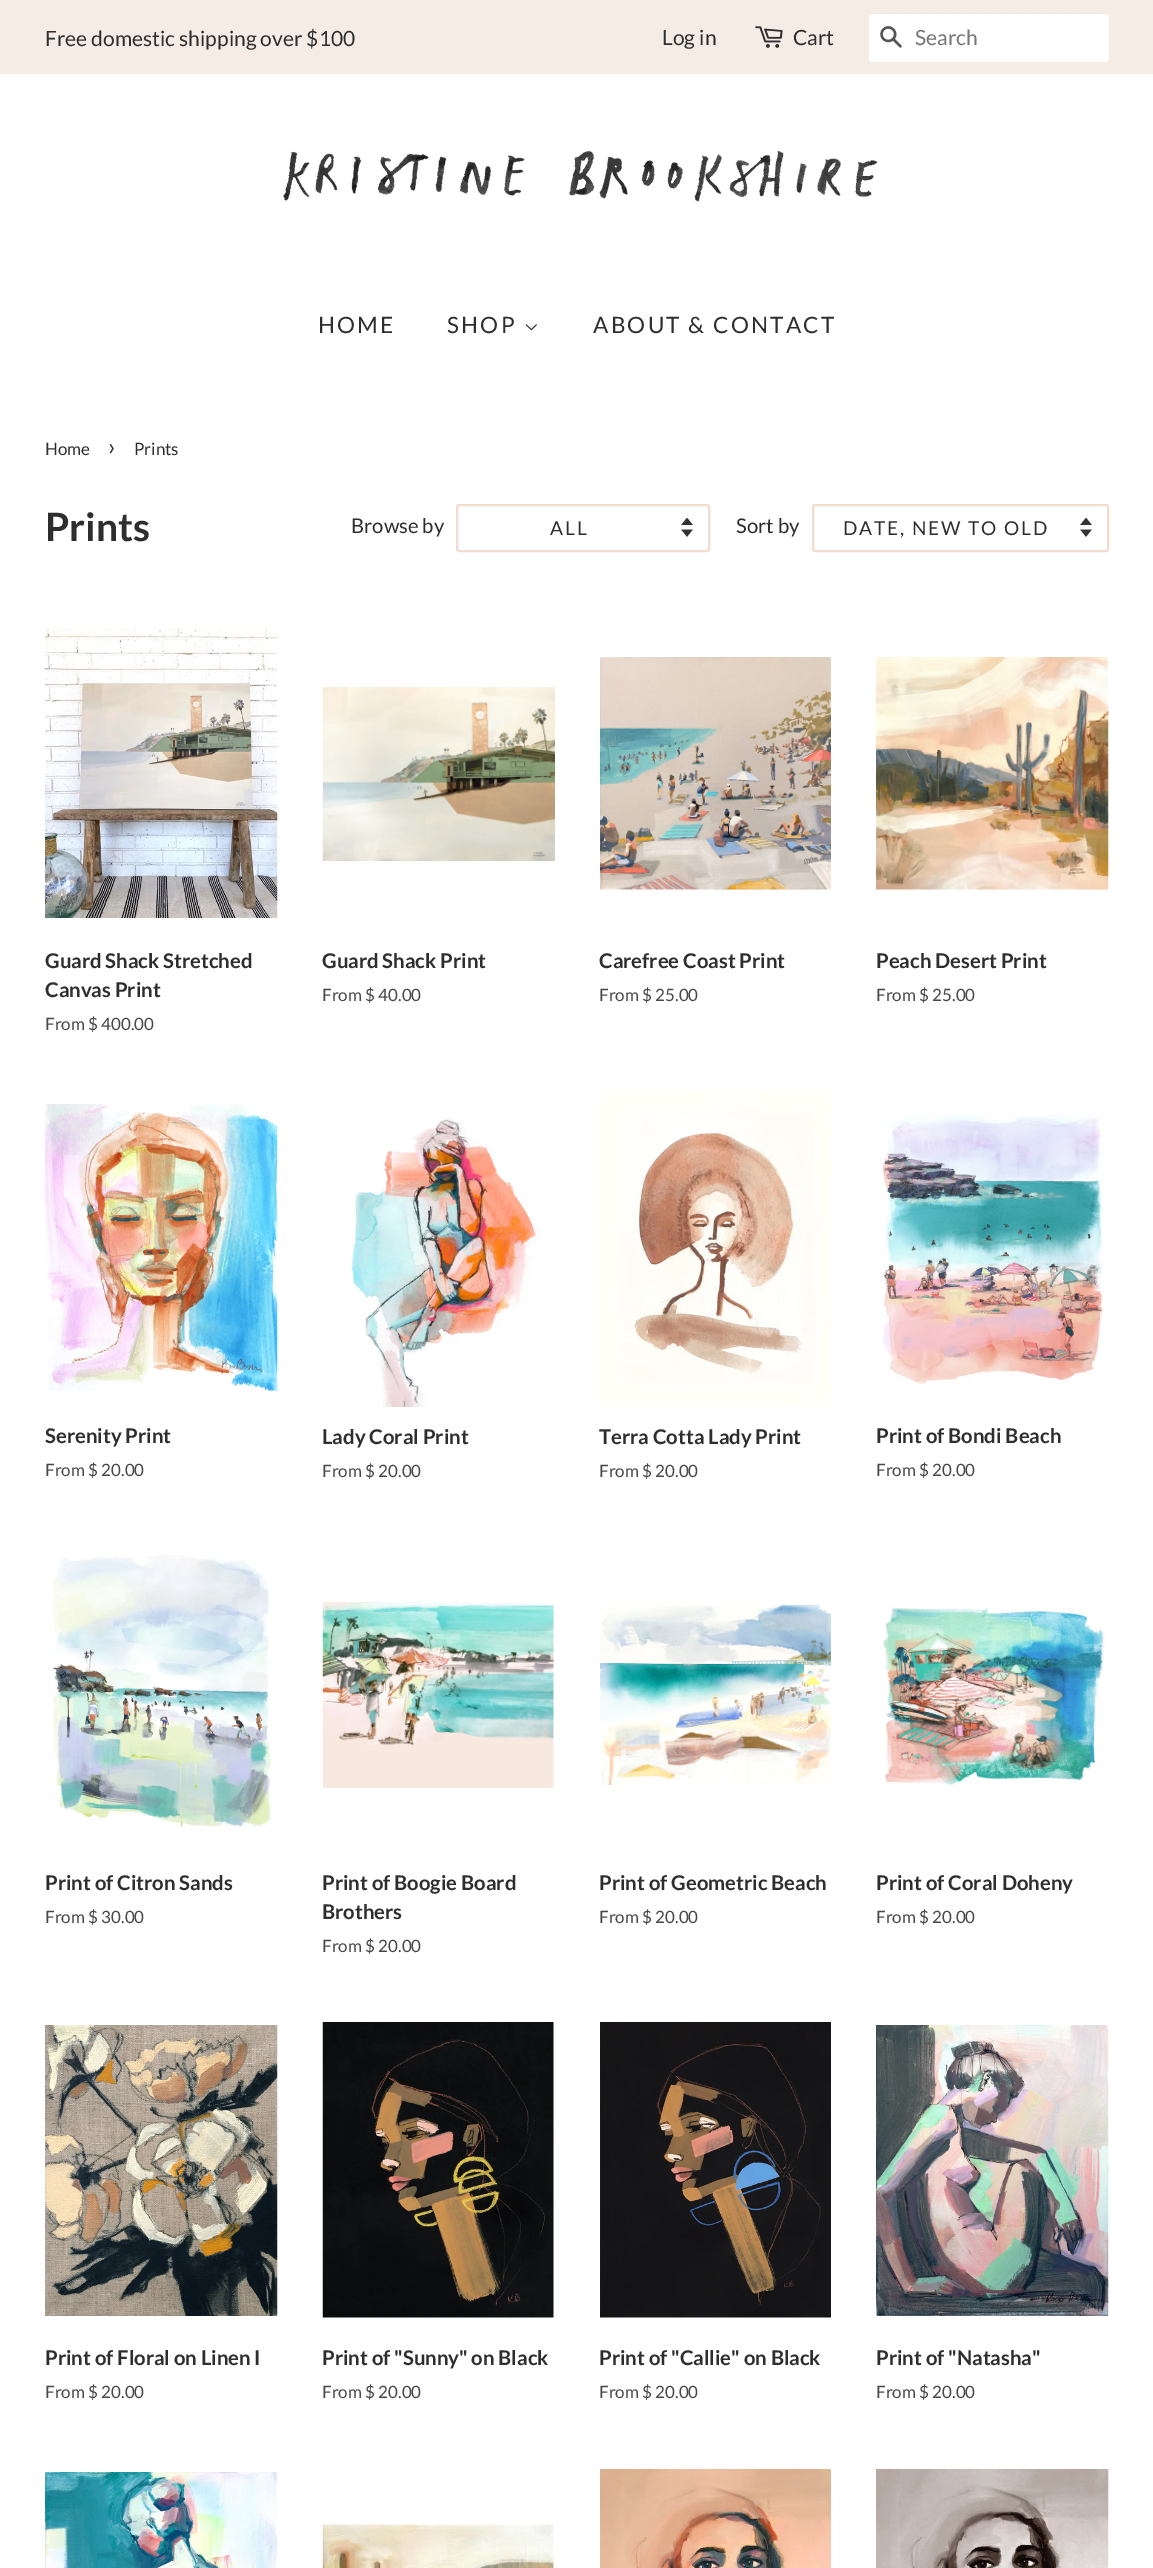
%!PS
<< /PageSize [1153 2568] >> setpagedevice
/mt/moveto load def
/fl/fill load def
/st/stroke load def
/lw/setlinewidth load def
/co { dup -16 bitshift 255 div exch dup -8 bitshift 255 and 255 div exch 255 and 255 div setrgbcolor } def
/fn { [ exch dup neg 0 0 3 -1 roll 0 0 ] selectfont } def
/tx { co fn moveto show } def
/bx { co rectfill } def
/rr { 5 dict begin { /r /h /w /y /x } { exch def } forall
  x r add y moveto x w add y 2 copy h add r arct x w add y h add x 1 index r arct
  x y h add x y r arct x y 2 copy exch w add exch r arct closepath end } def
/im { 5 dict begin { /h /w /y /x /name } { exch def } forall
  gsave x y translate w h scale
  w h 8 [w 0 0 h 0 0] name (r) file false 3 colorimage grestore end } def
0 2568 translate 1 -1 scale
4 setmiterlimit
0 0 1153 2568 16#FFFFFF bx
0 0 1153 74 16#F5ECE5 bx
(media/1.raw) 755 26 28 22 im
16#FFFFFF co
869 14 240 48 3 rr fl
(media/2.raw) 880 26 22 22 im
(media/3.raw) 283 150 595 52 im
(media/4.raw) 525 324 12 7 im
(media/5.raw) 681 518 12 19 im
16#F0DDCF co
2 lw
457 505 252 46 2 rr st
(media/5.raw) 1080 518 12 19 im
813 505 295 46 2 rr st
(media/6.raw) 45 628 233 290 im
(media/7.raw) 322 687 233 174 im
(media/8.raw) 600 657 231 233 im
(media/9.raw) 876 657 233 233 im
(media/10.raw) 45 1104 233 290 im
(media/11.raw) 351 1118 190 289 im
(media/12.raw) 600 1089 231 318 im
(media/13.raw) 882 1114 222 270 im
(media/14.raw) 52 1555 219 273 im
(media/15.raw) 322 1602 232 186 im
(media/16.raw) 600 1605 231 180 im
(media/17.raw) 883 1607 222 179 im
(media/18.raw) 45 2025 233 291 im
(media/19.raw) 322 2022 232 296 im
(media/20.raw) 600 2022 231 296 im
(media/21.raw) 876 2025 233 291 im
(media/22.raw) 45 2472 233 96 im
(media/23.raw) 322 2524 232 44 im
(media/24.raw) 600 2469 231 99 im
(media/25.raw) 876 2469 233 99 im
(Free domestic shipping over $100) 45 46 /Lato-Regular 21 16#2E2E2E tx
(Log in) 662 45 /Lato-Regular 21 16#2E2E2E tx
(Cart) 793 45 /Lato-Regular 21 16#2E2E2E tx
(Search) 915 45 /Lato-Regular 21 16#757575 tx
/Lato-Regular 22.5 fn
16#2E2E2E co
318 333 mt 2.25 0 (HOME) ashow
447 333 mt 2.25 0 (SHOP) ashow
593 333 mt 2.25 0 (ABOUT & CONTACT) ashow
(Home) 45 455 /Lato-Regular 17 16#2E2E2E tx
(›) 108 455 /Lato-Regular 24 16#2E2E2E tx
(Prints) 134 455 /Lato-Regular 17 16#2E2E2E tx
(Prints) 45 541 /Lato-Bold 39 16#2E2E2E tx
(Browse by) 351 533 /Lato-Regular 20.25 16#2E2E2E tx
/Lato-Regular 19.1 fn
550 535 mt 1.9 0 (ALL) ashow
(Sort by) 736 533 /Lato-Regular 20.25 16#2E2E2E tx
/Lato-Regular 19.1 fn
843 535 mt 1.9 0 (DATE, NEW TO OLD) ashow
(Guard Shack Stretched) 45 968 /Lato-Bold 20.25 16#2E2E2E tx
(Canvas Print) 45 997 /Lato-Bold 20.25 16#2E2E2E tx
(From $ 400.00) 45 1030 /Lato-Regular 17 16#484848 tx
(Guard Shack Print) 322 968 /Lato-Bold 20.25 16#2E2E2E tx
(From $ 40.00) 322 1001 /Lato-Regular 17 16#484848 tx
(Carefree Coast Print) 599 968 /Lato-Bold 20.25 16#2E2E2E tx
(From $ 25.00) 599 1001 /Lato-Regular 17 16#484848 tx
(Peach Desert Print) 876 968 /Lato-Bold 20.25 16#2E2E2E tx
(From $ 25.00) 876 1001 /Lato-Regular 17 16#484848 tx
(Serenity Print) 45 1443 /Lato-Bold 20.25 16#2E2E2E tx
(From $ 20.00) 45 1476 /Lato-Regular 17 16#484848 tx
(Lady Coral Print) 322 1444 /Lato-Bold 20.25 16#2E2E2E tx
(From $ 20.00) 322 1477 /Lato-Regular 17 16#484848 tx
(Terra Cotta Lady Print) 599 1444 /Lato-Bold 20.25 16#2E2E2E tx
(From $ 20.00) 599 1477 /Lato-Regular 17 16#484848 tx
(Print of Bondi Beach) 876 1443 /Lato-Bold 20.25 16#2E2E2E tx
(From $ 20.00) 876 1476 /Lato-Regular 17 16#484848 tx
(Print of Citron Sands) 45 1890 /Lato-Bold 20.25 16#2E2E2E tx
(From $ 30.00) 45 1923 /Lato-Regular 17 16#484848 tx
(Print of Boogie Board) 322 1890 /Lato-Bold 20.25 16#2E2E2E tx
(Brothers) 322 1919 /Lato-Bold 20.25 16#2E2E2E tx
(From $ 20.00) 322 1952 /Lato-Regular 17 16#484848 tx
(Print of Geometric Beach) 599 1890 /Lato-Bold 20.25 16#2E2E2E tx
(From $ 20.00) 599 1923 /Lato-Regular 17 16#484848 tx
(Print of Coral Doheny) 876 1890 /Lato-Bold 20.25 16#2E2E2E tx
(From $ 20.00) 876 1923 /Lato-Regular 17 16#484848 tx
(Print of Floral on Linen I) 45 2365 /Lato-Bold 20.25 16#2E2E2E tx
(From $ 20.00) 45 2398 /Lato-Regular 17 16#484848 tx
(Print of "Sunny" on Black) 322 2365 /Lato-Bold 20.25 16#2E2E2E tx
(From $ 20.00) 322 2398 /Lato-Regular 17 16#484848 tx
(Print of "Callie" on Black) 599 2365 /Lato-Bold 20.25 16#2E2E2E tx
(From $ 20.00) 599 2398 /Lato-Regular 17 16#484848 tx
(Print of "Natasha") 876 2365 /Lato-Bold 20.25 16#2E2E2E tx
(From $ 20.00) 876 2398 /Lato-Regular 17 16#484848 tx
showpage
